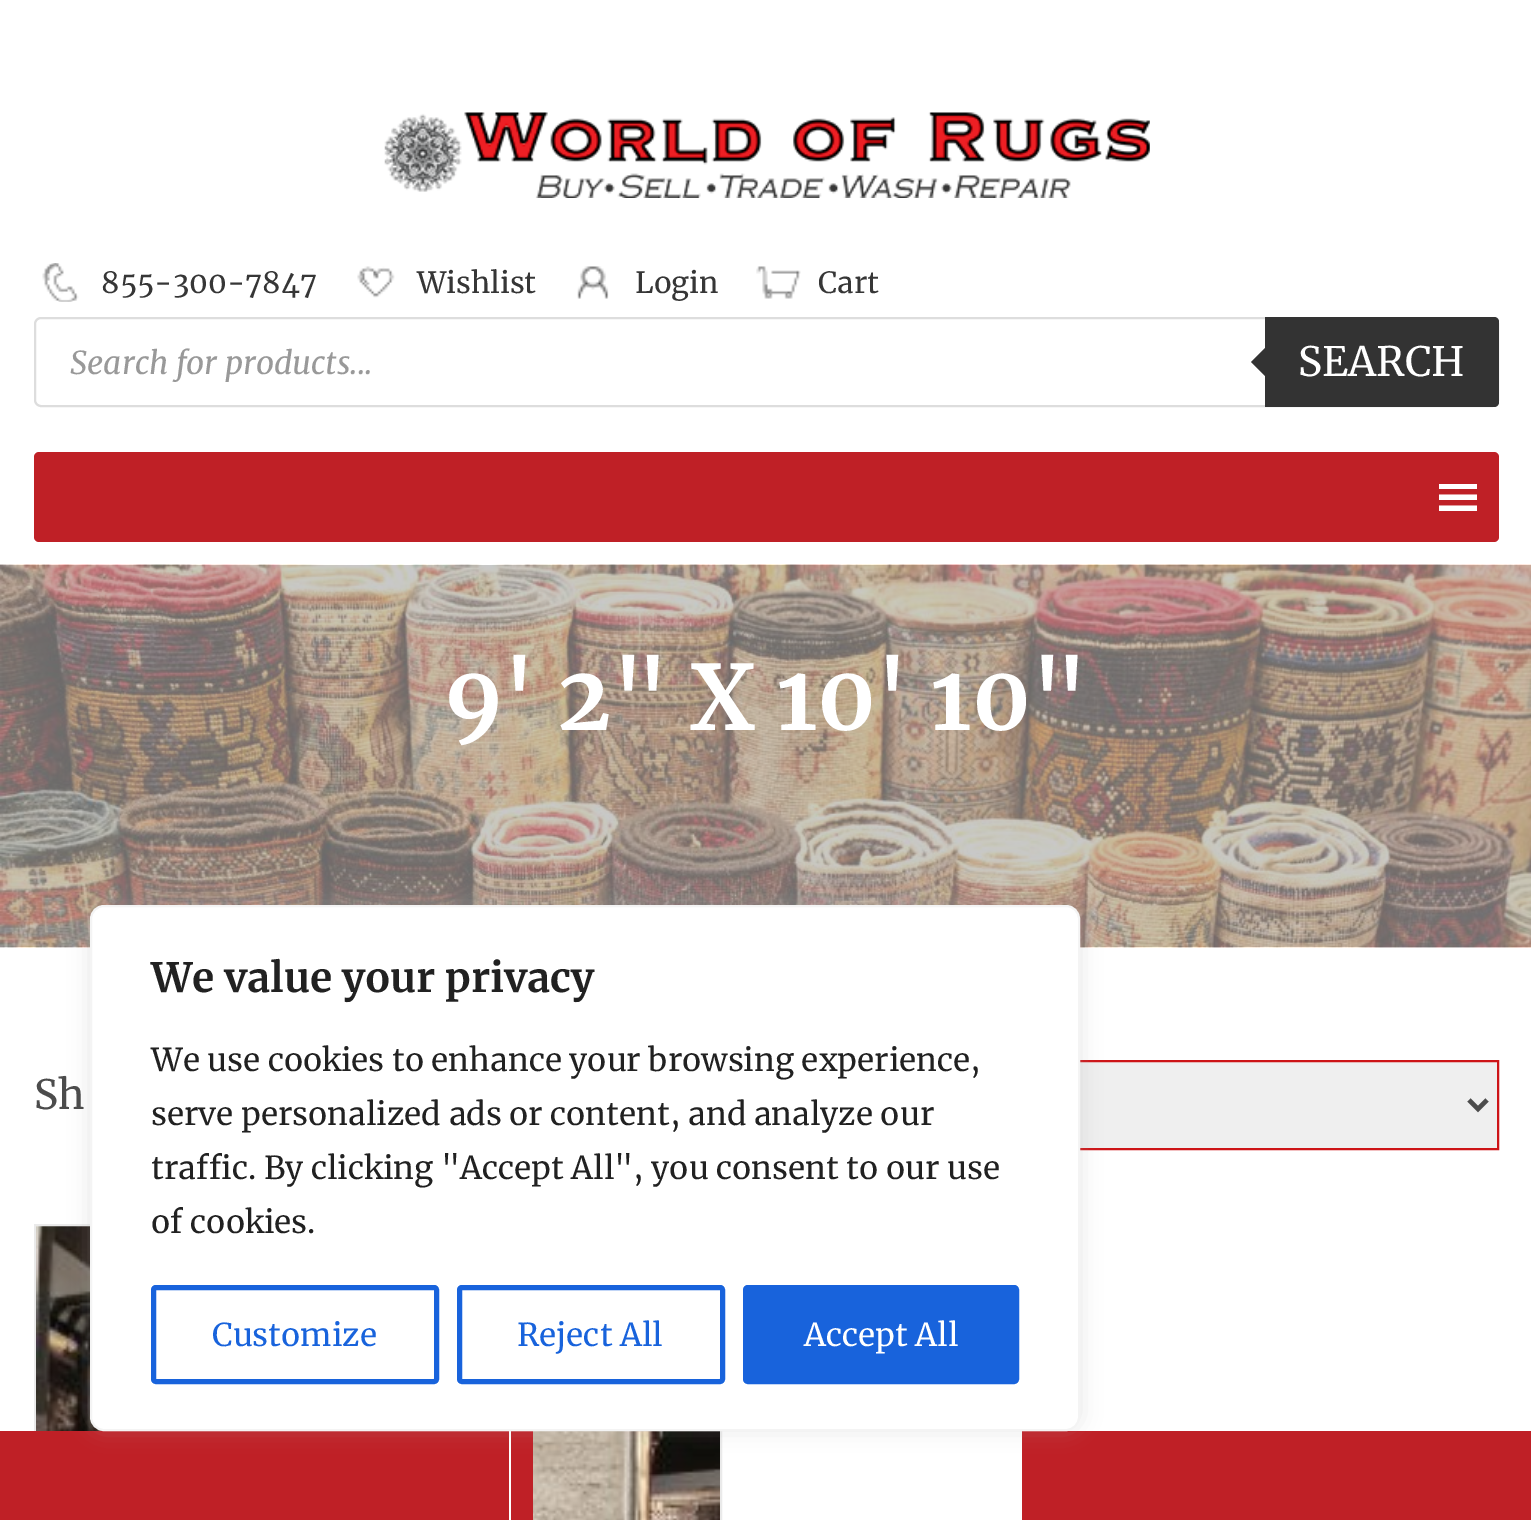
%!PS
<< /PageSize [1531 1520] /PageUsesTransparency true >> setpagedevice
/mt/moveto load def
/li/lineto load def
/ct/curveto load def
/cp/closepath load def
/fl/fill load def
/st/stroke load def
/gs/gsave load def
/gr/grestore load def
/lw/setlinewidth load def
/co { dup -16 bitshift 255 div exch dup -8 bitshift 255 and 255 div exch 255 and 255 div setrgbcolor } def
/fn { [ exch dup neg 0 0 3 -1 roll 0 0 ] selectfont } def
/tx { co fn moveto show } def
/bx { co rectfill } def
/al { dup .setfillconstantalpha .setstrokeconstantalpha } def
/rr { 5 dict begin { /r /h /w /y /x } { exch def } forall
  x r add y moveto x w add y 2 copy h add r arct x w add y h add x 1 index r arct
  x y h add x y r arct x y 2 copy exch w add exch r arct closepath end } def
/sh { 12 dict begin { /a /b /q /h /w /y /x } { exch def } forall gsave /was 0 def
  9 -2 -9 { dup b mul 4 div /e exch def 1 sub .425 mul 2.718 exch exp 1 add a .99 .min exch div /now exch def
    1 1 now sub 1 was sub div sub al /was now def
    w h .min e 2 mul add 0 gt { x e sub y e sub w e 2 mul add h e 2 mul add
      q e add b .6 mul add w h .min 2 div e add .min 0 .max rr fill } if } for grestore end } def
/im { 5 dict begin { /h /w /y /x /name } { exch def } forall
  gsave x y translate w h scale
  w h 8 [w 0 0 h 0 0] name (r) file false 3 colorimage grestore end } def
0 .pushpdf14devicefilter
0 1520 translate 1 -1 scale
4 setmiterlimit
0 0 1531 1520 16#FFFFFF bx
(media/1.raw) 384 112 766 86 im
(media/2.raw) 42 263 37 39 im
(media/3.raw) 357 266 38 32 im
(media/4.raw) 577 266 32 33 im
(media/5.raw) 756 266 45 33 im
16#DDDDDD co
2 lw
35 318 1463 88 6 rr st
16#333333 co
1265 317 mt 1494 317 li 1497 317 1499 319 1499 322 ct 1499 402 li 1499 405 1497 407 1494 407 ct 1265 407 li cp fl
1269 344 mt 1269 380 li 1251 362 li cp fl
16#BF2026 co
34 452 1465 90 5 rr fl
16#FFFFFF co
1439 511 mt 1477 511 li 1477 505.5 li 1439 505.5 li cp 1439 484 mt 1439 489 li 1477 489 li 1477 484 li cp 1439 500 mt 1477 500 li 1477 494.5 li 1439 494.5 li cp fl
(media/6.raw) 0 564 1531 384 im
1080 1062 417 86 16#EFEFEF bx
16#CD1417 co
721 1061 777 88 rectstroke
16#4C4C4C co
4.5 lw
1469 1100 mt 1478 1109 li 1487 1100 li st
16#EAEAEA co
2 lw
35 1225 686 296 rectstroke
(media/7.raw) 36 1226 684 294 im
509 1431 2 89 16#FFFFFF bx
0 1431 509 89 16#BF2026 bx
511 1431 22 89 16#BF2026 bx
1022 1431 509 89 16#BF2026 bx
16#ACABAB co
90 902 990 527 14 11 .3 sh
16#FFFFFF co
91 906 988 524 13 rr gs fl gr
16#F4F4F4 co
st
16#1863DC co
5 lw
153.5 1287.5 283 94 2.5 rr st
459.5 1287.5 263 94 2.5 rr st
745.5 1287.5 271 94 2.5 rr gs fl gr
st
(855-300-7847) 101 293 /Merriweather-Regular 29.25 16#363636 tx
(Wishlist) 417 293 /Merriweather-Regular 29.25 16#363636 tx
(Login) 635 293 /Merriweather-Regular 29.25 16#363636 tx
(Cart) 818 293 /Merriweather-Regular 29.25 16#363636 tx
(Search for products...) 70 374 /Merriweather-Italic 31.5 16#999999 tx
(SEARCH) 1298 376 /Merriweather-Regular 40.5 16#FFFFFF tx
(9' 2" X 10' 10") 444 730 /Merriweather-Bold 90 16#FFFFFF tx
(Sh) 34 1109 /Merriweather-Regular 40.5 16#4C4C4C tx
(We value your privacy) 151 992 /Merriweather-Bold 40.5 16#212121 tx
(We use cookies to enhance your browsing experience,) 151 1071 /Merriweather-Regular 31.5 16#212121 tx
(serve personalized ads or content, and analyze our) 151 1125 /Merriweather-Regular 31.5 16#212121 tx
(traffic. By clicking "Accept All", you consent to our use) 151 1179 /Merriweather-Regular 31.5 16#212121 tx
(of cookies.) 151 1233 /Merriweather-Regular 31.5 16#212121 tx
(Customize) 212 1346 /Merriweather-Regular 31.5 16#1863DC tx
(Reject All) 517 1346 /Merriweather-Regular 31.5 16#1863DC tx
(Accept All) 804 1346 /Merriweather-Regular 31.5 16#FFFFFF tx
.poppdf14devicefilter showpage
